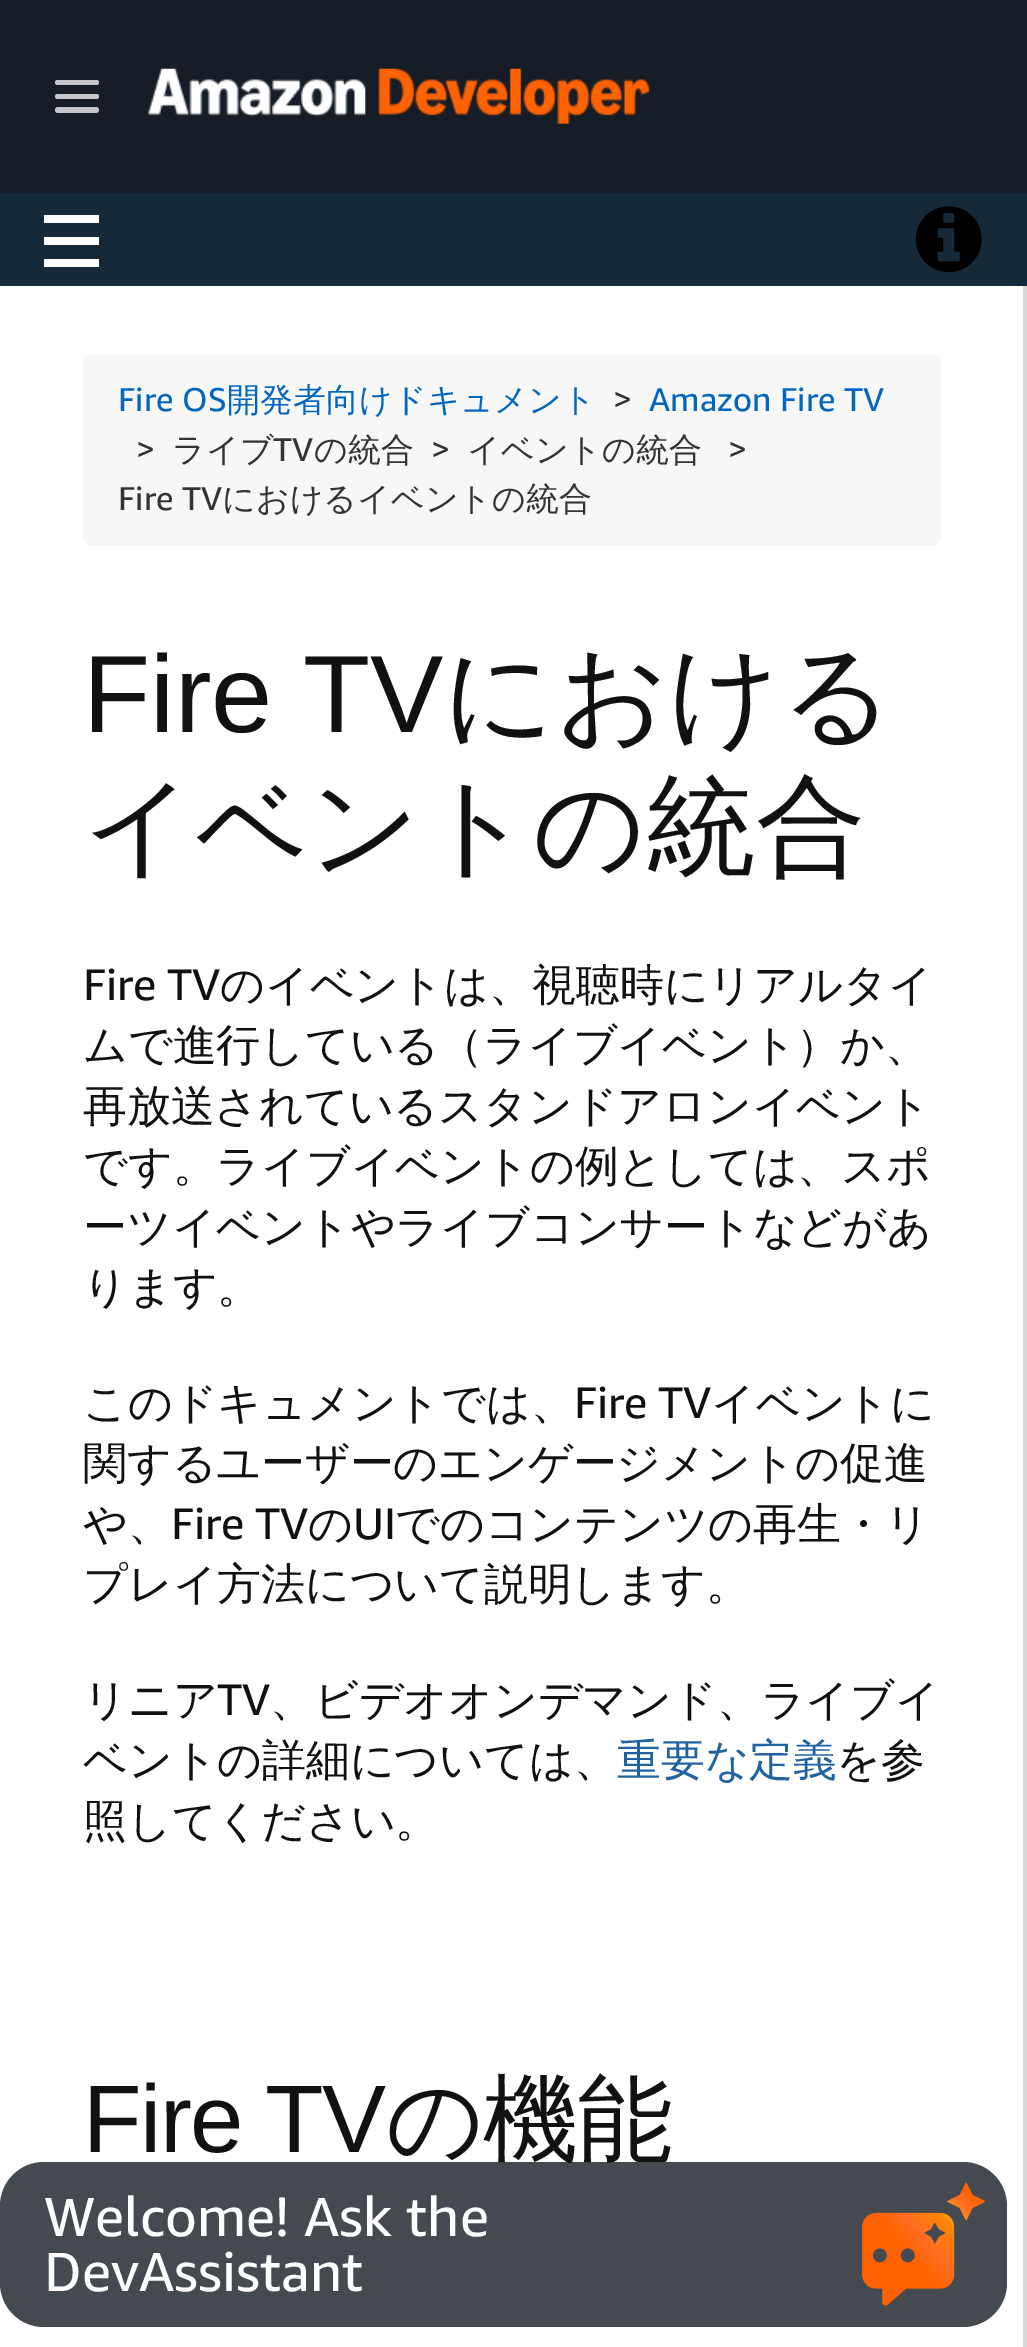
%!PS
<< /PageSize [1027 2347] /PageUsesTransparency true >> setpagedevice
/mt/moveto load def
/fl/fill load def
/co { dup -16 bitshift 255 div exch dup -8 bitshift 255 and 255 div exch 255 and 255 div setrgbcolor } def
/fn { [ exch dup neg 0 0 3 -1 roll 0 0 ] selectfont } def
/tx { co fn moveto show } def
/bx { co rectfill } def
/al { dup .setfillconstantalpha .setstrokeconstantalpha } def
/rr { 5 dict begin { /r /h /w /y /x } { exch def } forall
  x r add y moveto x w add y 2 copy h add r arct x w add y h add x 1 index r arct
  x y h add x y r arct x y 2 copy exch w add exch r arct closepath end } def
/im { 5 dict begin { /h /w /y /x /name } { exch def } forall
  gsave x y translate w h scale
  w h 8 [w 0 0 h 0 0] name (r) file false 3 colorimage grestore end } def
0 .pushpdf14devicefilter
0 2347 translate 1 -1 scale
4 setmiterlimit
0 0 1027 2347 16#152939 bx
0 0 1027 193 16#161D26 bx
16#C5C6C9 co
55 80 44 5 2.5 rr fl
55 94 44 5 2.5 rr fl
55 107 44 6 3 rr fl
(media/1.raw) 148 68 502 56 im
44 215 55 8 16#FFFFFF bx
44 237 55 8 16#FFFFFF bx
44 259 55 8 16#FFFFFF bx
(media/2.raw) 915 206 67 67 im
0 286 1023 2061 16#FFFFFF bx
16#F7F7F7 co
83 355 858 190 8 rr fl
1023 286 4 2061 16#DBD8D8 bx
(Fire OS) 118 411 /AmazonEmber-Regular 33 16#0066C0 tx
(開発者向けドキュメント) 227 411 /WenQuanYiZenHei-Medium 33 16#0066C0 tx
(>) 613 411 /AmazonEmber-Regular 33 16#333333 tx
(Amazon Fire TV) 649 411 /AmazonEmber-Regular 33 16#0066C0 tx
(>) 136 461 /AmazonEmber-Regular 33 16#333333 tx
(ライブ) 172 461 /WenQuanYiZenHei-Medium 33 16#333333 tx
(TV) 273 461 /AmazonEmber-Regular 33 16#333333 tx
(の統合) 314 461 /WenQuanYiZenHei-Medium 33 16#333333 tx
(>) 431 461 /AmazonEmber-Regular 33 16#333333 tx
(イベントの統合) 467 461 /WenQuanYiZenHei-Medium 33 16#333333 tx
(>) 728 461 /AmazonEmber-Regular 33 16#333333 tx
(Fire TV) 118 510 /AmazonEmber-Regular 33 16#333333 tx
(におけるイベントの統合) 222 510 /WenQuanYiZenHei-Medium 33 16#333333 tx
(Fire TV) 83 732 /LiberationSans-Regular 110 16#111111 tx
(における) 443 732 /WenQuanYiZenHei-Medium 110 16#111111 tx
(イベントの統合) 83 864 /WenQuanYiZenHei-Medium 110 16#111111 tx
/AmazonEmber-Regular 44 fn
83 1000 mt -.25 0 (Fire TV) ashow
/WenQuanYiZenHei-Medium 44 fn
220 1000 mt -.25 0 (のイベントは、視聴時にリアルタイ) ashow
83 1060 mt -.25 0 (ムで進行している（ライブイベント）か、) ashow
83 1121 mt -.25 0 (再放送されているスタンドアロンイベント) ashow
83 1181 mt -.25 0 (です。ライブイベントの例としては、スポ) ashow
83 1242 mt -.25 0 (ーツイベントやライブコンサートなどがあ) ashow
83 1302 mt -.25 0 (ります。) ashow
83 1418 mt -.25 0 (このドキュメントでは、) ashow
/AmazonEmber-Regular 44 fn
574 1418 mt -.25 0 (Fire TV) ashow
/WenQuanYiZenHei-Medium 44 fn
711 1418 mt -.25 0 (イベントに) ashow
83 1478 mt -.25 0 (関するユーザーのエンゲージメントの促進) ashow
83 1539 mt -.25 0 (や、) ashow
/AmazonEmber-Regular 44 fn
171 1539 mt -.25 0 (Fire TV) ashow
/WenQuanYiZenHei-Medium 44 fn
308 1539 mt -.25 0 (の) ashow
/AmazonEmber-Regular 44 fn
353 1539 mt -.25 0 (UI) ashow
/WenQuanYiZenHei-Medium 44 fn
395 1539 mt -.25 0 (でのコンテンツの再生・リ) ashow
83 1599 mt -.25 0 (プレイ方法について説明します。) ashow
83 1715 mt -.25 0 (リニア) ashow
/AmazonEmber-Regular 44 fn
217 1715 mt -.25 0 (TV) ashow
/WenQuanYiZenHei-Medium 44 fn
270 1715 mt -.25 0 (、ビデオオンデマンド、ライブイ) ashow
83 1775 mt -.25 0 (ベントの詳細については、) ashow
16#2162A1 co
617 1775 mt -.25 0 (重要な定義) ashow
16#111111 co
836 1775 mt -.25 0 (を参) ashow
83 1836 mt -.25 0 (照してください。) ashow
/LiberationSans-Regular 96 fn
83 2152 mt -3 0 32 -1.5 0 (Fire TV) awidthshow
/WenQuanYiZenHei-Medium 96 fn
386 2152 mt -1.5 0 (の機能) ashow
0.8 al
16#161D26 co
0 2162 1007 165 44 rr fl
1 al
(Welcome! Ask the) 44 2236 /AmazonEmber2-Regular 55 16#FFFFFF tx
(DevAssistant) 44 2291 /AmazonEmber2-Regular 55 16#FFFFFF tx
(media/3.raw) 862 2182 124 124 im
.poppdf14devicefilter showpage
